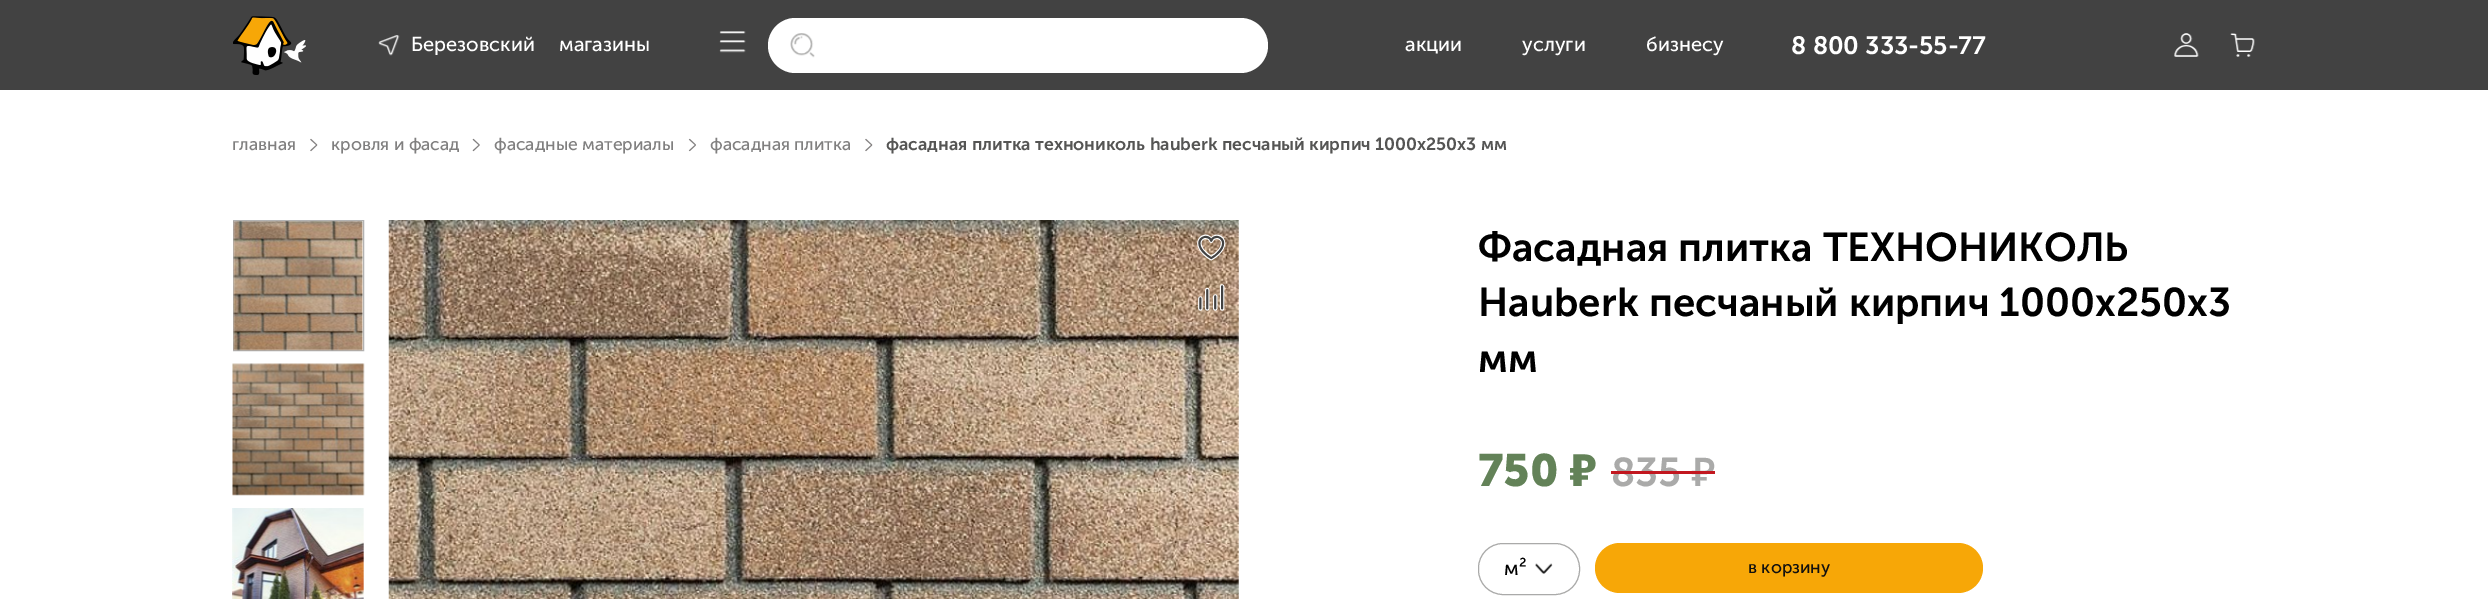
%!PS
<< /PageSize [2488 599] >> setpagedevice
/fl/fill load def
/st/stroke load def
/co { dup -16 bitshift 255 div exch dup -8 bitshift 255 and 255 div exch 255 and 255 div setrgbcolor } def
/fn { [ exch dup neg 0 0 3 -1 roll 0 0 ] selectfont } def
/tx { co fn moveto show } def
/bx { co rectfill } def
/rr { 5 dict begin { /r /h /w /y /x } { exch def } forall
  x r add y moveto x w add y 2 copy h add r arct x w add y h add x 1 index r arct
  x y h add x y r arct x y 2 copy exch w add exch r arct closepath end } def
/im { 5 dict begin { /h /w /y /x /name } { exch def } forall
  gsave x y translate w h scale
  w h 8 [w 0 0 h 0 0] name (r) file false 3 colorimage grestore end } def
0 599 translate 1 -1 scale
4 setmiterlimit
0 0 2488 599 16#FFFFFF bx
0 0 2488 90 16#424242 bx
(media/1.raw) 233 16 73 59 im
(media/2.raw) 378 35 22 21 im
(media/3.raw) 719 31 27 22 im
16#FFFFFF co
768 18 500 55 27.5 rr fl
(media/4.raw) 790 33 25 25 im
(media/5.raw) 2174 33 25 24 im
(media/6.raw) 2230 33 25 24 im
(media/7.raw) 310 138 8 14 im
(media/8.raw) 472 138 8 14 im
(media/9.raw) 688 138 8 14 im
(media/7.raw) 865 138 8 14 im
16#B3B3B3 co
233.5 220.5 130 130 rectstroke
(media/10.raw) 233 221 130 130 im
(media/11.raw) 232 363 133 133 im
(media/12.raw) 232 508 132 91 im
(media/13.raw) 388 220 851 379 im
(media/14.raw) 1197 234 29 27 im
(media/15.raw) 1198 284 27 27 im
16#AAAAA9 co
1478.5 543.5 101 51 24.5 rr st
(media/16.raw) 1535 563 18 11 im
16#F7A707 co
1595 543 388 50 25 rr fl
(Березовский) 411 51 /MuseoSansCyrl-Regular 20 16#FFFFFF tx
(магазины) 559 51 /MuseoSansCyrl-Regular 20 16#FFFFFF tx
(акции) 1405 51 /MuseoSansCyrl-Regular 20 16#FFFFFF tx
(услуги) 1522 51 /MuseoSansCyrl-Regular 20 16#FFFFFF tx
(бизнесу) 1646 51 /MuseoSansCyrl-Regular 20 16#FFFFFF tx
(8 800 333-55-77) 1791 54 /MuseoSansCyrl-SemiBold 25 16#FFFFFF tx
(главная) 232 150 /MuseoSansCyrl-Regular 17.5 16#807F7F tx
(кровля и фасад) 331 150 /MuseoSansCyrl-Regular 17.5 16#807F7F tx
(фасадные материалы) 494 150 /MuseoSansCyrl-Regular 17.5 16#807F7F tx
(фасадная плитка) 710 150 /MuseoSansCyrl-Regular 17.5 16#807F7F tx
(фасадная плитка технониколь hauberk песчаный кирпич 1000х250х3 мм) 886 150 /MuseoSansCyrl-SemiBold 17.5 16#555554 tx
(Фасадная плитка ТЕХНОНИКОЛЬ) 1478 261 /MuseoSansCyrl-SemiBold 40 16#000000 tx
(Hauberk песчаный кирпич 1000х250х3) 1478 316 /MuseoSansCyrl-SemiBold 40 16#000000 tx
(мм) 1478 372 /MuseoSansCyrl-SemiBold 40 16#000000 tx
(750) 1478 486 /MuseoSansCyrl-Bold 45 16#638258 tx
(₽) 1569 486 /NunitoSans-Black 45 16#638258 tx
(835) 1611 486 /MuseoSansCyrl-SemiBold 40 16#AAAAA9 tx
(₽) 1691 486 /NunitoSans-Bold 40 16#AAAAA9 tx
1611 471 104 3 16#C2171F bx
(м²) 1504 575 /MuseoSansCyrl-Regular 20 16#000000 tx
(в корзину) 1748 573 /MuseoSansCyrl-Regular 17.5 16#11100F tx
showpage
